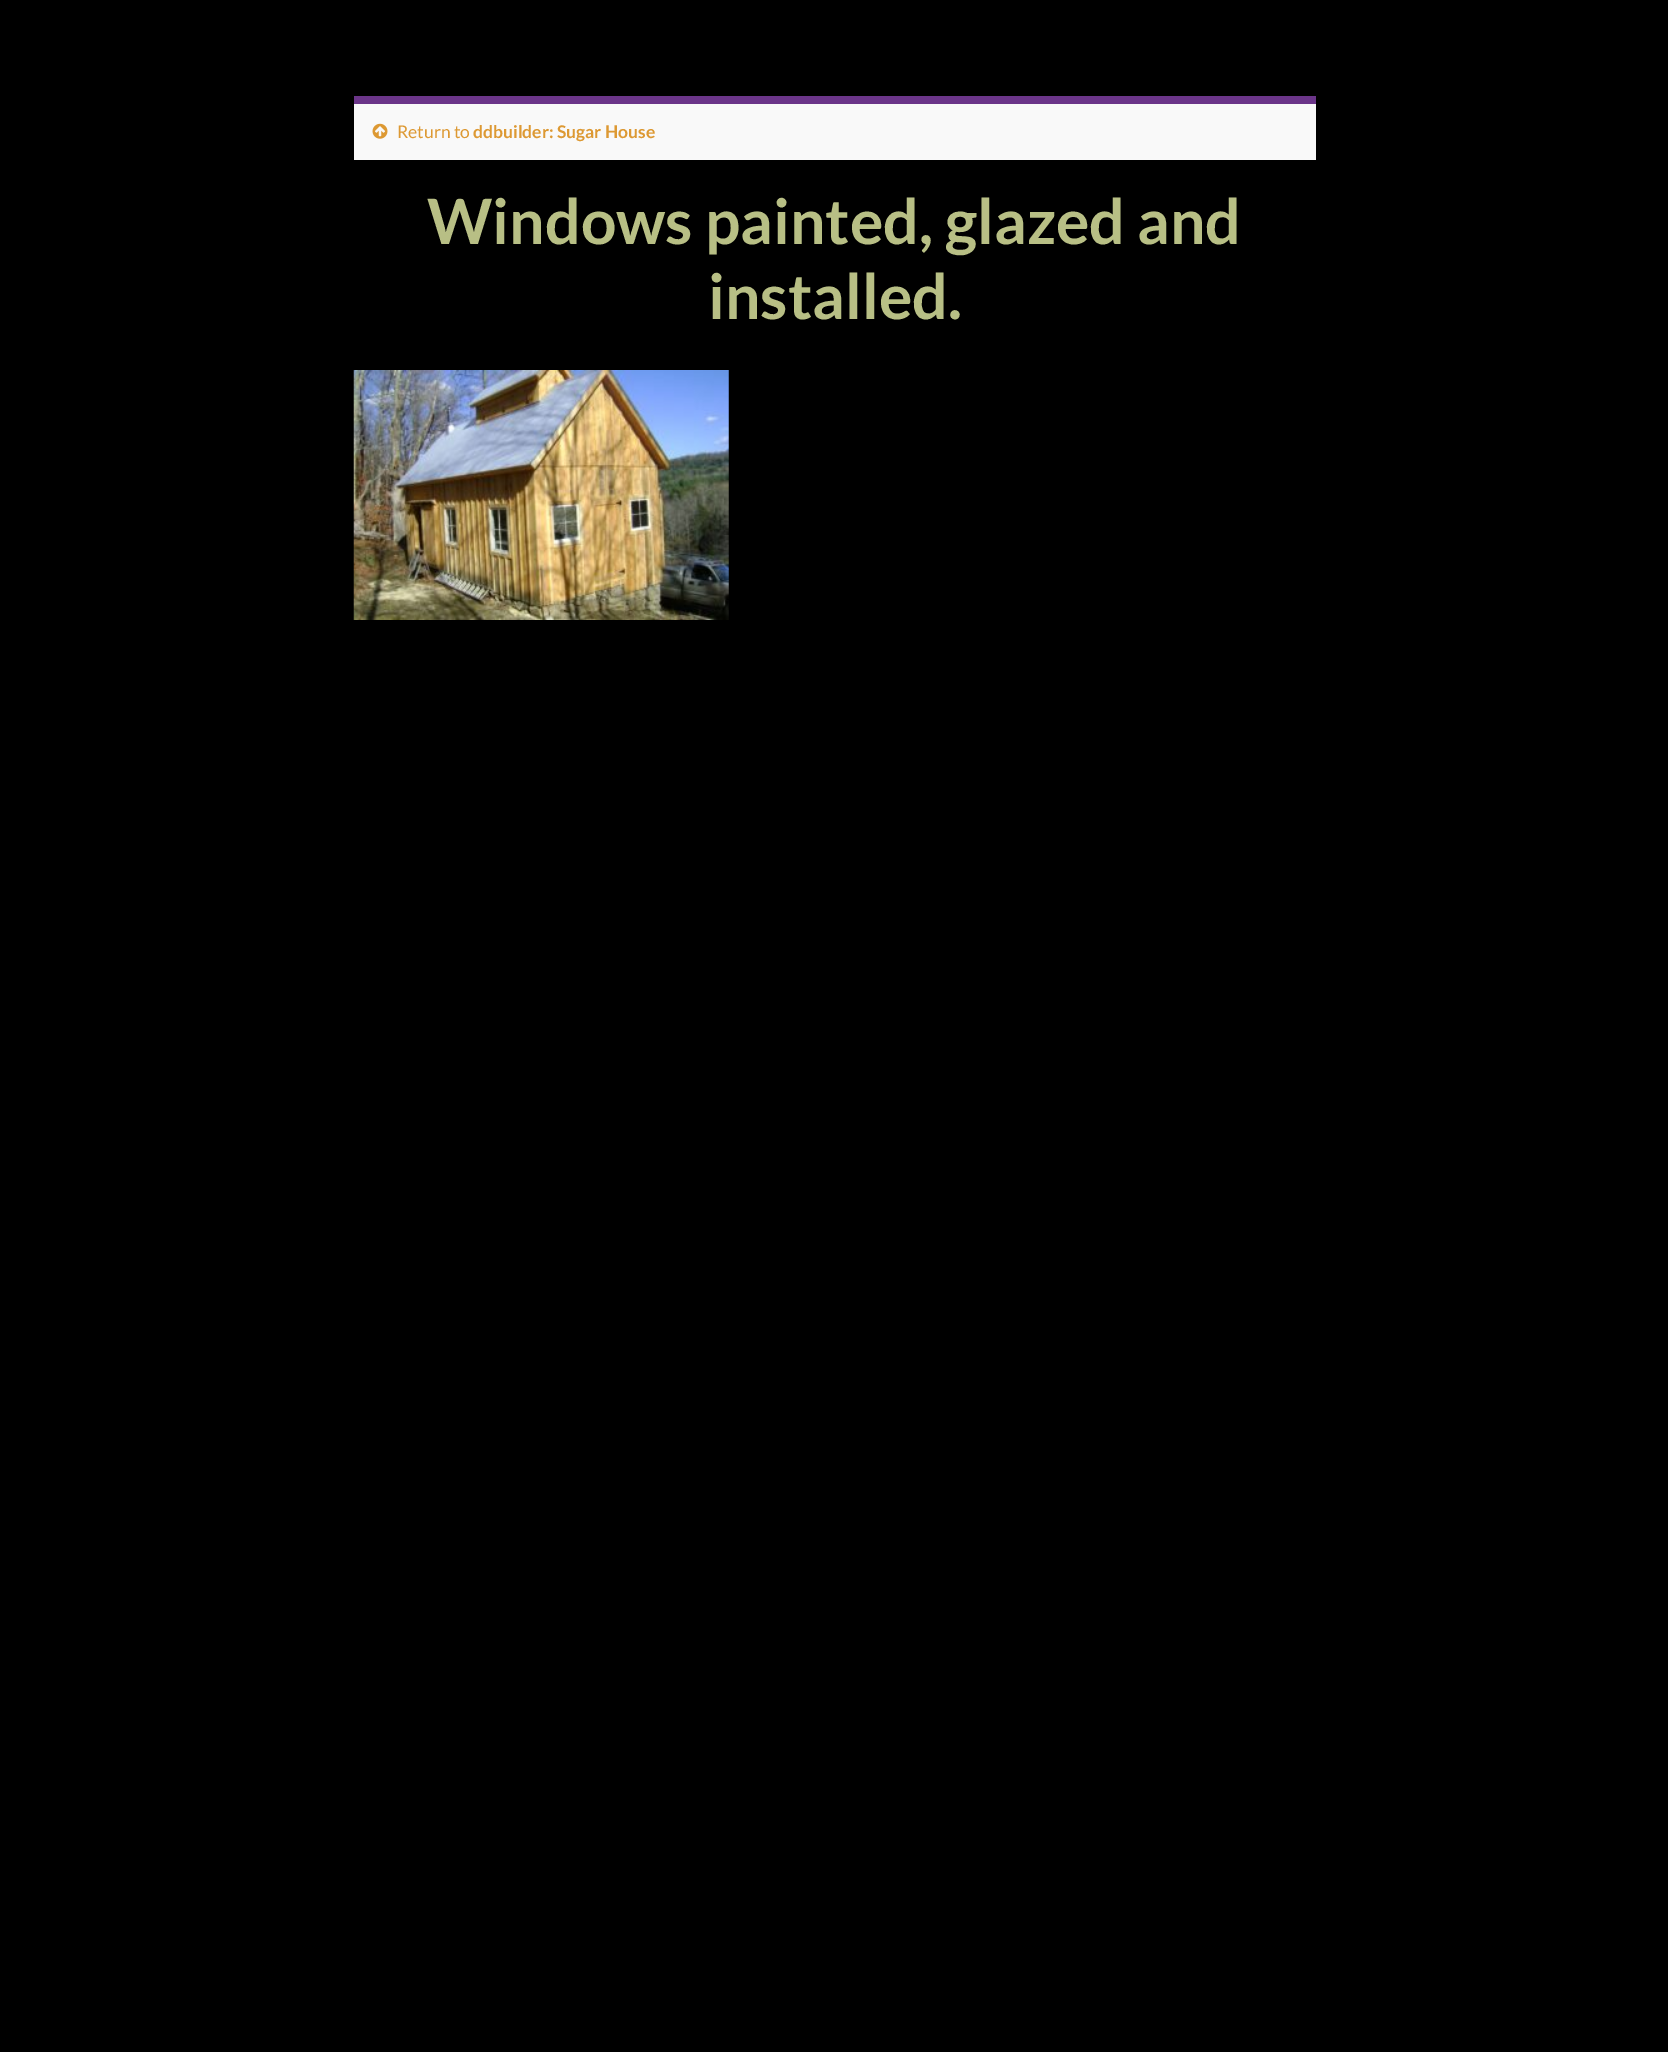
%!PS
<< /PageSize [1668 2052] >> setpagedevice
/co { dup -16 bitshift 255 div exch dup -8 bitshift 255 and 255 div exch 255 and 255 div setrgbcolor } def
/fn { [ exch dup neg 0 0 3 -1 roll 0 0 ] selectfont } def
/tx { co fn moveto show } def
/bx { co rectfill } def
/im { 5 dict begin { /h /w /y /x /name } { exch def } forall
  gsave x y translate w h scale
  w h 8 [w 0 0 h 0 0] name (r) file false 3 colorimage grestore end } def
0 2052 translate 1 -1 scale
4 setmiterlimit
0 0 1668 2052 16#000000 bx
354 104 962 56 16#F9F9F9 bx
354 96 962 8 16#6B3589 bx
(media/1.raw) 372 123 16 16 im
(media/2.raw) 353 370 376 250 im
(Return to) 397 138 /Lato-Regular 17.5 16#DD9933 tx
(ddbuilder: Sugar House) 473 138 /Lato-Bold 17.5 16#DD9933 tx
(Windows painted, glazed and) 427 244 /Lato-Bold 62.5 16#B8BF85 tx
(installed.) 708 319 /Lato-Bold 62.5 16#B8BF85 tx
showpage
